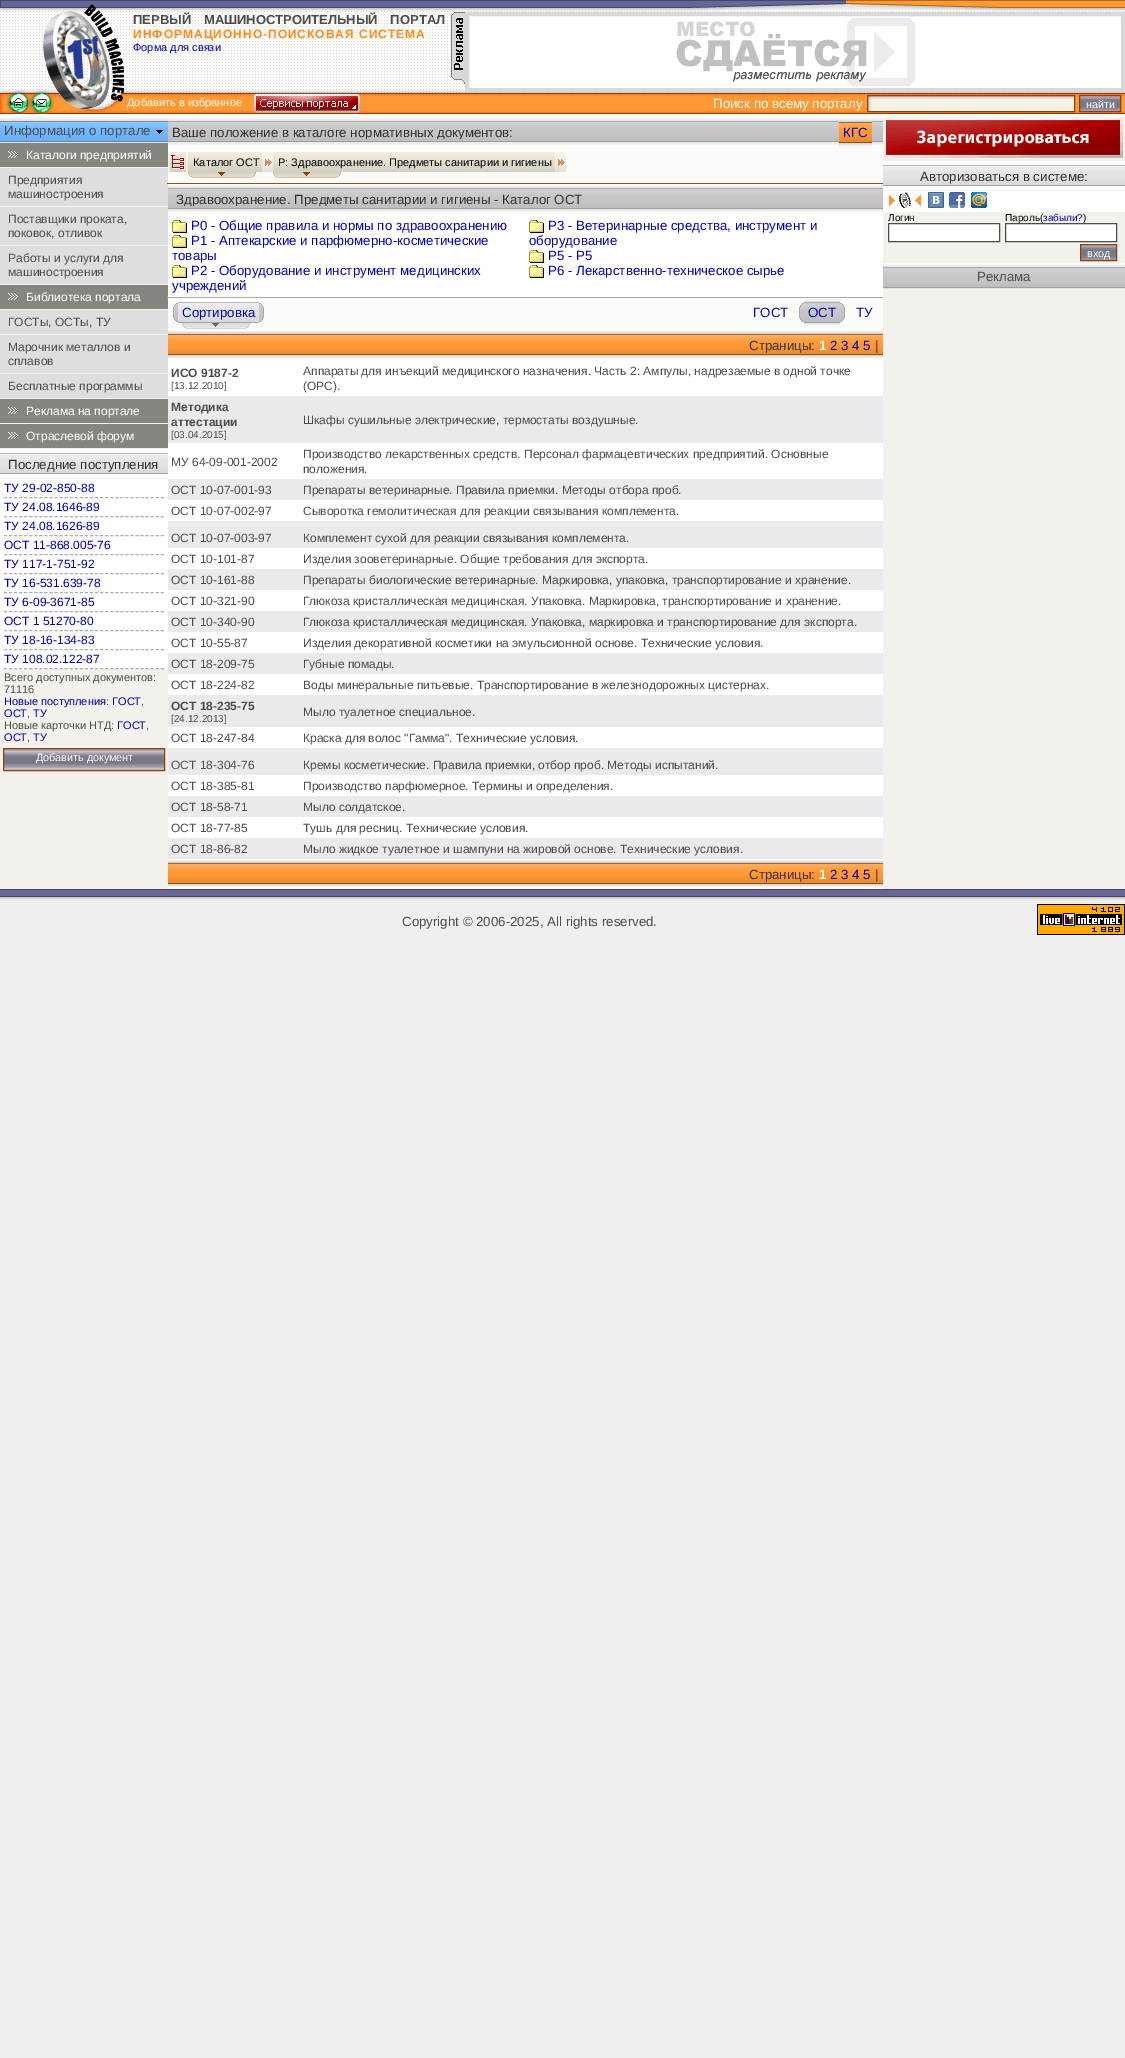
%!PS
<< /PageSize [1125 2058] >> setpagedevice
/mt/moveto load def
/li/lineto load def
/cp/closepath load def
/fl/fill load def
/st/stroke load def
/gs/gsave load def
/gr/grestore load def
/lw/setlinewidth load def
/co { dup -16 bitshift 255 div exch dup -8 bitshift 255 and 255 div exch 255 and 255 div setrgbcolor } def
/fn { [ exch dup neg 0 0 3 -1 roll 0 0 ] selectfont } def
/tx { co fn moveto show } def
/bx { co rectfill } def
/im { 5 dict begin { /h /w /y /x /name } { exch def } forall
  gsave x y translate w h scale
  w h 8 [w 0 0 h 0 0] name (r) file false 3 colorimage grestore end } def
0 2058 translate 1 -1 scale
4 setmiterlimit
0 0 1125 2058 16#EFEFEF bx
0 114 1125 3 16#FFFFFF bx
(media/1.raw) 0 0 1125 114 im
(media/2.raw) 0 1 127 113 im
(media/3.raw) 693 0 432 12 im
(media/4.raw) 451 12 14 72 im
469 16 652 72 16#FFFFFF bx
(media/5.raw) 676 18 239 68 im
16#D8D8D8 co
4 lw
467 14 656 76 rectstroke
(media/6.raw) 254 94 106 19 im
(media/7.raw) 868 96 206 15 im
16#963D0B co
1 lw
867.5 95.5 207 16 rectstroke
(media/8.raw) 1080 96 40 15 im
1079.5 95.5 41 16 rectstroke
0 167 168 722 16#F2F1EB bx
(media/9.raw) 0 117 168 26 im
(media/10.raw) 156 130 7 4 im
0 143 168 24 16#868580 bx
(media/11.raw) 8 151 10 7 im
0 168 168 38 16#DEDEDE bx
0 207 168 38 16#DEDEDE bx
0 246 168 38 16#DEDEDE bx
0 285 168 24 16#868580 bx
(media/11.raw) 8 293 10 7 im
0 310 168 24 16#DEDEDE bx
0 335 168 38 16#DEDEDE bx
0 374 168 24 16#DEDEDE bx
0 399 168 24 16#868580 bx
(media/11.raw) 8 407 10 7 im
0 424 168 24 16#868580 bx
(media/11.raw) 8 432 10 7 im
(media/12.raw) 0 449 168 29 im
0 479 168 190 16#FFFFFF bx
16#AEAEAE co
[3 2.06] 0 setdash
4 497.5 mt 164 497.5 li st
4 516.5 mt 164 516.5 li st
4 535.5 mt 164 535.5 li st
4 554.5 mt 164 554.5 li st
4 573.5 mt 164 573.5 li st
4 592.5 mt 164 592.5 li st
4 611.5 mt 164 611.5 li st
4 630.5 mt 164 630.5 li st
4 649.5 mt 164 649.5 li st
4 668.5 mt 164 668.5 li st
(media/13.raw) 4 749 160 21 im
16#963D0B co
[] 0 setdash
3.5 748.5 161 22 rectstroke
168 117 715 772 16#FBFBF9 bx
(media/14.raw) 168 118 618 27 im
(media/15.raw) 786 118 97 27 im
(media/16.raw) 839 118 33 29 im
167 183 717 1 16#8B531C bx
(media/17.raw) 170 152 16 20 im
(media/18.raw) 168 152 20 20 im
(media/19.raw) 188 152 74 20 im
(media/20.raw) 262 152 11 20 im
(media/21.raw) 188 172 68 6 im
(media/22.raw) 273 152 282 20 im
(media/20.raw) 555 152 11 20 im
(media/21.raw) 273 172 68 6 im
(media/23.raw) 168 185 715 27 im
168 214 715 83 16#FFFFFF bx
(media/24.raw) 172 220 15 13 im
(media/24.raw) 172 235 15 13 im
(media/24.raw) 172 265 15 13 im
167 297 717 1 16#AAAAAA bx
(media/24.raw) 529 220 15 13 im
(media/24.raw) 529 250 15 13 im
(media/24.raw) 529 265 15 13 im
(media/25.raw) 173 303 5 19 im
(media/26.raw) 178 298 81 29 im
(media/27.raw) 182 323 68 6 im
(media/28.raw) 259 303 5 19 im
(media/25.raw) 799 303 5 19 im
(media/29.raw) 804 299 36 27 im
(media/28.raw) 840 303 5 19 im
(media/30.raw) 168 331 715 27 im
168 360 715 36 16#FFFFFF bx
168 396 715 47 16#EAEAEA bx
168 443 715 36 16#FFFFFF bx
168 479 715 21 16#EAEAEA bx
168 500 715 21 16#FFFFFF bx
168 521 715 6 16#ECECEC bx
168 527 715 21 16#EAEAEA bx
168 548 715 21 16#FFFFFF bx
168 569 715 21 16#EAEAEA bx
168 590 715 21 16#FFFFFF bx
168 611 715 21 16#EAEAEA bx
168 632 715 21 16#FFFFFF bx
168 653 715 21 16#EAEAEA bx
168 674 715 21 16#FFFFFF bx
168 695 715 32 16#EAEAEA bx
168 727 715 21 16#FFFFFF bx
168 748 715 6 16#ECECEC bx
168 754 715 21 16#EAEAEA bx
168 775 715 21 16#FFFFFF bx
168 796 715 21 16#EAEAEA bx
168 817 715 21 16#FFFFFF bx
168 838 715 21 16#EAEAEA bx
(media/30.raw) 168 860 715 27 im
883 117 242 772 16#F2F1EB bx
(media/31.raw) 886 118 237 40 im
(media/32.raw) 883 161 242 29 im
883 191 242 21 16#FFFFFF bx
(media/33.raw) 889 192 32 16 im
(media/34.raw) 928 192 16 16 im
(media/35.raw) 949 192 16 16 im
(media/36.raw) 971 192 16 16 im
888.5 223.5 mt 999.5 223.5 li 999.5 241.5 li 888.5 241.5 li cp gs fl gr
16#4C4C4C co
st
(media/37.raw) 1081 245 35 15 im
16#963D0B co
1080.5 244.5 36 16 rectstroke
(media/38.raw) 883 263 242 26 im
(media/39.raw) 0 889 1125 12 im
(media/40.raw) 1037 904 88 31 im
/LiberationSans-Bold 13 fn
16#4C4C4C co
133 24 mt 9 0 32 (ПЕРВЫЙ МАШИНОСТРОИТЕЛЬНЫЙ ПОРТАЛ) widthshow
/LiberationSans-Bold 12 fn
16#FF8A15 co
133 38 mt 1 0 (ИНФОРМАЦИОННО-ПОИСКОВАЯ СИСТЕМА) ashow
(Форма для связи) 133 51 /LiberationSans-Regular 11 16#0000B4 tx
(Добавить в избранное) 127 106 /LiberationSans-Regular 11 16#FFFFFF tx
(Поиск по всему порталу) 713 108 /LiberationSans-Regular 13.3 16#FFFFFF tx
(найти) 1086 108 /LiberationSans-Regular 10.75 16#FFFFFF tx
(Информация о портале) 4 135 /LiberationSans-Regular 13.3 16#4C4C4C tx
(Каталоги предприятий) 26 159 /LiberationSans-Regular 12 16#FFFFFF tx
(Предприятия) 8 184 /LiberationSans-Regular 12 16#4C4C4C tx
(машиностроения) 8 198 /LiberationSans-Regular 12 16#4C4C4C tx
(Поставщики проката,) 8 223 /LiberationSans-Regular 12 16#4C4C4C tx
(поковок, отливок) 8 237 /LiberationSans-Regular 12 16#4C4C4C tx
(Работы и услуги для) 8 262 /LiberationSans-Regular 12 16#4C4C4C tx
(машиностроения) 8 276 /LiberationSans-Regular 12 16#4C4C4C tx
(Библиотека портала) 26 301 /LiberationSans-Regular 12 16#FFFFFF tx
(ГОСТы, ОСТы, ТУ) 8 326 /LiberationSans-Regular 12 16#4C4C4C tx
(Марочник металлов и) 8 351 /LiberationSans-Regular 12 16#4C4C4C tx
(сплавов) 8 365 /LiberationSans-Regular 12 16#4C4C4C tx
(Бесплатные программы) 8 390 /LiberationSans-Regular 12 16#4C4C4C tx
(Реклама на портале) 26 415 /LiberationSans-Regular 12 16#FFFFFF tx
(Отраслевой форум) 26 440 /LiberationSans-Regular 12 16#FFFFFF tx
(Последние поступления) 8 469 /LiberationSans-Regular 13.3 16#2F2F2F tx
(ТУ 29-02-850-88) 4 492 /LiberationSans-Regular 12 16#0000B4 tx
(ТУ 24.08.1646-89) 4 511 /LiberationSans-Regular 12 16#0000B4 tx
(ТУ 24.08.1626-89) 4 530 /LiberationSans-Regular 12 16#0000B4 tx
(ОСТ 11-868.005-76) 4 549 /LiberationSans-Regular 12 16#0000B4 tx
(ТУ 117-1-751-92) 4 568 /LiberationSans-Regular 12 16#0000B4 tx
(ТУ 16-531.639-78) 4 587 /LiberationSans-Regular 12 16#0000B4 tx
(ТУ 6-09-3671-85) 4 606 /LiberationSans-Regular 12 16#0000B4 tx
(ОСТ 1 51270-80) 4 625 /LiberationSans-Regular 12 16#0000B4 tx
(ТУ 18-16-134-83) 4 644 /LiberationSans-Regular 12 16#0000B4 tx
(ТУ 108.02.122-87) 4 663 /LiberationSans-Regular 12 16#0000B4 tx
(Всего доступных документов:) 4 681 /LiberationSans-Regular 11 16#4C4C4C tx
(71116) 4 693 /LiberationSans-Regular 11 16#4C4C4C tx
(Новые поступления) 4 705 /LiberationSans-Regular 11 16#0000B4 tx
(:) 106 705 /LiberationSans-Regular 11 16#4C4C4C tx
(ГОСТ) 112 705 /LiberationSans-Regular 11 16#0000B4 tx
(,) 141 705 /LiberationSans-Regular 11 16#4C4C4C tx
(ОСТ) 4 717 /LiberationSans-Regular 11 16#0000B4 tx
(,) 27 717 /LiberationSans-Regular 11 16#4C4C4C tx
(ТУ) 33 717 /LiberationSans-Regular 11 16#0000B4 tx
(Новые карточки НТД:) 4 729 /LiberationSans-Regular 11 16#4C4C4C tx
(ГОСТ) 117 729 /LiberationSans-Regular 11 16#0000B4 tx
(,) 146 729 /LiberationSans-Regular 11 16#4C4C4C tx
(ОСТ) 4 741 /LiberationSans-Regular 11 16#0000B4 tx
(,) 27 741 /LiberationSans-Regular 11 16#4C4C4C tx
(ТУ) 33 741 /LiberationSans-Regular 11 16#0000B4 tx
(Добавить документ) 36 761 /LiberationSans-Regular 10.75 16#FFFFFF tx
gs
172 125 610 14 rectclip
(Ваше положение в каталоге нормативных документов:) 172 137 /LiberationSans-Regular 13.3 16#2F2F2F tx
gr
(КГС) 843 137 /LiberationSans-Regular 13.3 16#0000B4 tx
(Каталог ОСТ) 193 166 /LiberationSans-Regular 11 16#000000 tx
(Р: Здравоохранение. Предметы санитарии и гигиены) 278 166 /LiberationSans-Regular 11 16#000000 tx
gs
172 192 707 14 rectclip
(Здравоохранение. Предметы санитарии и гигиены - Каталог ОСТ) 176 204 /LiberationSans-Regular 13.3 16#2F2F2F tx
gr
(Р0 - Общие правила и нормы по здравоохранению) 191 230 /LiberationSans-Regular 13.3 16#0000B4 tx
(Р1 - Аптекарские и парфюмерно-косметические) 191 245 /LiberationSans-Regular 13.3 16#0000B4 tx
(товары) 172 260 /LiberationSans-Regular 13.3 16#0000B4 tx
(Р2 - Оборудование и инструмент медицинских) 191 275 /LiberationSans-Regular 13.3 16#0000B4 tx
(учреждений) 172 290 /LiberationSans-Regular 13.3 16#0000B4 tx
(Р3 - Ветеринарные средства, инструмент и) 548 230 /LiberationSans-Regular 13.3 16#0000B4 tx
(оборудование) 529 245 /LiberationSans-Regular 13.3 16#0000B4 tx
(Р5 - Р5) 548 260 /LiberationSans-Regular 13.3 16#0000B4 tx
(Р6 - Лекарственно-техническое сырье) 548 275 /LiberationSans-Regular 13.3 16#0000B4 tx
(Сортировка) 182 317 /LiberationSans-Regular 13.3 16#0000B4 tx
(ГОСТ) 753 317 /LiberationSans-Regular 13.3 16#0000B4 tx
(ОСТ) 808 317 /LiberationSans-Regular 13.3 16#0000B4 tx
(ТУ) 856 317 /LiberationSans-Regular 13.3 16#0000B4 tx
(Страницы:) 749 350 /LiberationSans-Regular 13.3 16#2F2F2F tx
(1) 819 350 /LiberationSans-Bold 13.3 16#FFFFFF tx
(2 3 4 5) 830 350 /LiberationSans-Regular 13.3 16#0000B4 tx
(|) 875 350 /LiberationSans-Regular 13.3 16#2F2F2F tx
(ИСО 9187-2) 171 377 /LiberationSans-Bold 12 16#4C4C4C tx
([13.12.2010]) 171 389 /LiberationSans-Regular 10 16#4C4C4C tx
(Аппараты для инъекций медицинского назначения. Часть 2: Ампулы, надрезаемые в одной точке) 303 375 /LiberationSans-Regular 12 16#4C4C4C tx
(\(ОРС\).) 303 390 /LiberationSans-Regular 12 16#4C4C4C tx
(Методика) 171 411 /LiberationSans-Bold 12 16#4C4C4C tx
(аттестации) 171 426 /LiberationSans-Bold 12 16#4C4C4C tx
([03.04.2015]) 171 438 /LiberationSans-Regular 10 16#4C4C4C tx
(Шкафы сушильные электрические, термостаты воздушные.) 303 424 /LiberationSans-Regular 12 16#4C4C4C tx
(МУ 64-09-001-2002) 171 466 /LiberationSans-Regular 12 16#4C4C4C tx
(Производство лекарственных средств. Персонал фармацевтических предприятий. Основные) 303 458 /LiberationSans-Regular 12 16#4C4C4C tx
(положения.) 303 473 /LiberationSans-Regular 12 16#4C4C4C tx
(ОСТ 10-07-001-93) 171 494 /LiberationSans-Regular 12 16#4C4C4C tx
(Препараты ветеринарные. Правила приемки. Методы отбора проб.) 303 494 /LiberationSans-Regular 12 16#4C4C4C tx
(ОСТ 10-07-002-97) 171 515 /LiberationSans-Regular 12 16#4C4C4C tx
(Сыворотка гемолитическая для реакции связывания комплемента.) 303 515 /LiberationSans-Regular 12 16#4C4C4C tx
(ОСТ 10-07-003-97) 171 542 /LiberationSans-Regular 12 16#4C4C4C tx
(Комплемент сухой для реакции связывания комплемента.) 303 542 /LiberationSans-Regular 12 16#4C4C4C tx
(ОСТ 10-101-87) 171 563 /LiberationSans-Regular 12 16#4C4C4C tx
(Изделия зооветеринарные. Общие требования для экспорта.) 303 563 /LiberationSans-Regular 12 16#4C4C4C tx
(ОСТ 10-161-88) 171 584 /LiberationSans-Regular 12 16#4C4C4C tx
(Препараты биологические ветеринарные. Маркировка, упаковка, транспортирование и хранение.) 303 584 /LiberationSans-Regular 12 16#4C4C4C tx
(ОСТ 10-321-90) 171 605 /LiberationSans-Regular 12 16#4C4C4C tx
(Глюкоза кристаллическая медицинская. Упаковка. Маркировка, транспортирование и хранение.) 303 605 /LiberationSans-Regular 12 16#4C4C4C tx
(ОСТ 10-340-90) 171 626 /LiberationSans-Regular 12 16#4C4C4C tx
(Глюкоза кристаллическая медицинская. Упаковка, маркировка и транспортирование для экспорта.) 303 626 /LiberationSans-Regular 12 16#4C4C4C tx
(ОСТ 10-55-87) 171 647 /LiberationSans-Regular 12 16#4C4C4C tx
(Изделия декоративной косметики на эмульсионной основе. Технические условия.) 303 647 /LiberationSans-Regular 12 16#4C4C4C tx
(ОСТ 18-209-75) 171 668 /LiberationSans-Regular 12 16#4C4C4C tx
(Губные помады.) 303 668 /LiberationSans-Regular 12 16#4C4C4C tx
(ОСТ 18-224-82) 171 689 /LiberationSans-Regular 12 16#4C4C4C tx
(Воды минеральные питьевые. Транспортирование в железнодорожных цистернах.) 303 689 /LiberationSans-Regular 12 16#4C4C4C tx
(ОСТ 18-235-75) 171 710 /LiberationSans-Bold 12 16#4C4C4C tx
([24.12.2013]) 171 722 /LiberationSans-Regular 10 16#4C4C4C tx
(Мыло туалетное специальное.) 303 716 /LiberationSans-Regular 12 16#4C4C4C tx
(ОСТ 18-247-84) 171 742 /LiberationSans-Regular 12 16#4C4C4C tx
(Краска для волос "Гамма". Технические условия.) 303 742 /LiberationSans-Regular 12 16#4C4C4C tx
(ОСТ 18-304-76) 171 769 /LiberationSans-Regular 12 16#4C4C4C tx
(Кремы косметические. Правила приемки, отбор проб. Методы испытаний.) 303 769 /LiberationSans-Regular 12 16#4C4C4C tx
(ОСТ 18-385-81) 171 790 /LiberationSans-Regular 12 16#4C4C4C tx
(Производство парфюмерное. Термины и определения.) 303 790 /LiberationSans-Regular 12 16#4C4C4C tx
(ОСТ 18-58-71) 171 811 /LiberationSans-Regular 12 16#4C4C4C tx
(Мыло солдатское.) 303 811 /LiberationSans-Regular 12 16#4C4C4C tx
(ОСТ 18-77-85) 171 832 /LiberationSans-Regular 12 16#4C4C4C tx
(Тушь для ресниц. Технические условия.) 303 832 /LiberationSans-Regular 12 16#4C4C4C tx
(ОСТ 18-86-82) 171 853 /LiberationSans-Regular 12 16#4C4C4C tx
(Мыло жидкое туалетное и шампуни на жировой основе. Технические условия.) 303 853 /LiberationSans-Regular 12 16#4C4C4C tx
(Страницы:) 749 879 /LiberationSans-Regular 13.3 16#2F2F2F tx
(1) 819 879 /LiberationSans-Bold 13.3 16#FFFFFF tx
(2 3 4 5) 830 879 /LiberationSans-Regular 13.3 16#0000B4 tx
(|) 875 879 /LiberationSans-Regular 13.3 16#2F2F2F tx
(Авторизоваться в системе:) 920 181 /LiberationSans-Regular 13.3 16#2F2F2F tx
(Логин) 888 221 /LiberationSans-Regular 10 16#000000 tx
(Пароль\() 1005 221 /LiberationSans-Regular 10 16#000000 tx
(забыли?) 1043 221 /LiberationSans-Regular 10 16#0000B4 tx
(\)) 1083 221 /LiberationSans-Regular 10 16#000000 tx
16#FFFFFF co
1005.5 223.5 mt 1116.5 223.5 li 1116.5 241.5 li 1005.5 241.5 li cp gs fl gr
16#4C4C4C co
st
(вход) 1087 257 /LiberationSans-Regular 10.75 16#FFFFFF tx
(Реклама) 977 281 /LiberationSans-Regular 13.3 16#4C4C4C tx
(Copyright © 2006-2025, All rights reserved.) 402 926 /LiberationSans-Regular 13.3 16#4C4C4C tx
showpage
